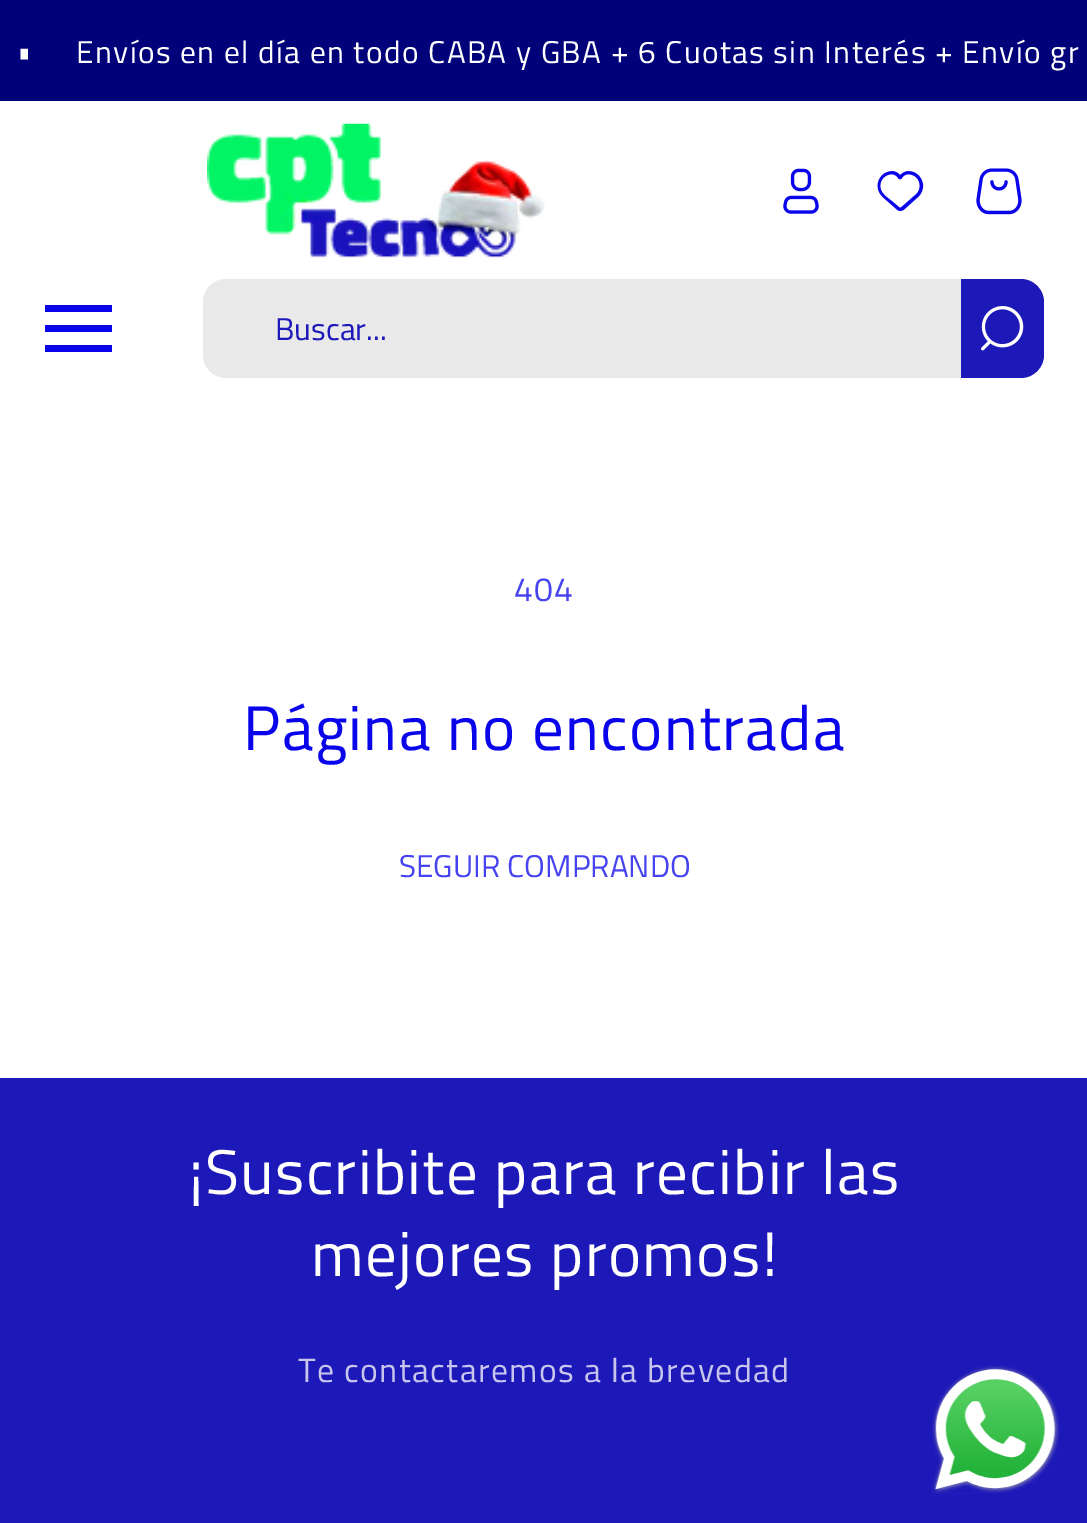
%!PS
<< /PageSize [1087 1523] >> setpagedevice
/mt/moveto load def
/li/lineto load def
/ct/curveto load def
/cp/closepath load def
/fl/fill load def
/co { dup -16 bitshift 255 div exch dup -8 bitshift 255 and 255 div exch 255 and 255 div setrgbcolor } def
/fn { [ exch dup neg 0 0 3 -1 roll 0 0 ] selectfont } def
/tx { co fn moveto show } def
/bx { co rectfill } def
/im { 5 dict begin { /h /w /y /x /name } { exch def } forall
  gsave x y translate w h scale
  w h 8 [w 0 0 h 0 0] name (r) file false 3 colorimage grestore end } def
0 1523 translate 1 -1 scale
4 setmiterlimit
0 0 1087 1523 16#FFFFFF bx
0 0 1087 101 16#01017A bx
(media/1.raw) 207 123 338 135 im
(media/2.raw) 783 168 36 46 im
(media/3.raw) 877 171 47 41 im
(media/4.raw) 976 168 46 47 im
16#0904EA co
45 345 mt 112 345 li 112 352 li 45 352 li cp 45 305 mt 112 305 li 112 312 li 45 312 li cp 45 325 mt 112 325 li 112 332 li 45 332 li cp eofill
16#E9E9E9 co
226 279 mt 961 279 li 961 378 li 226 378 li 213.5 378 203 367.5 203 355 ct 203 302 li 203 289.5 213.5 279 226 279 ct cp fl
16#1D18B8 co
961 279 mt 1021 279 li 1033.5 279 1044 289.5 1044 302 ct 1044 355 li 1044 367.5 1033.5 378 1021 378 ct 961 378 li cp fl
(media/5.raw) 981 306 43 45 im
0 1078 1087 445 16#1D18B8 bx
(media/6.raw) 932 1365 128 129 im
/TitilliumWeb-Regular 94 fn
16#FFFFFF co
14 81 mt 4 0 (·) ashow
/TitilliumWeb-Regular 31.5 fn
76 63 mt 1.35 0 (Envíos en el día en todo CABA y GBA + 6 Cuotas sin Interés + Envío gr) ashow
(Buscar...) 275 340 /TitilliumWeb-Regular 31.5 16#1D18B8 tx
/TitilliumWeb-Regular 33.75 fn
16#4743EF co
514 601 mt 1.35 0 (404) ashow
/TitilliumWeb-Regular 63 fn
16#0904EA co
243 750 mt 1.35 0 (Página no encontrada) ashow
(SEGUIR COMPRANDO) 399 877 /TitilliumWeb-Regular 31.5 16#4743EF tx
/TitilliumWeb-Regular 63 fn
16#FFFFFF co
189 1194 mt 1.35 0 (¡Suscribite para recibir las) ashow
311 1276 mt 1.35 0 (mejores promos!) ashow
/TitilliumWeb-Regular 33.75 fn
16#C7C5ED co
298 1382 mt 1.35 0 (Te contactaremos a la brevedad) ashow
showpage
